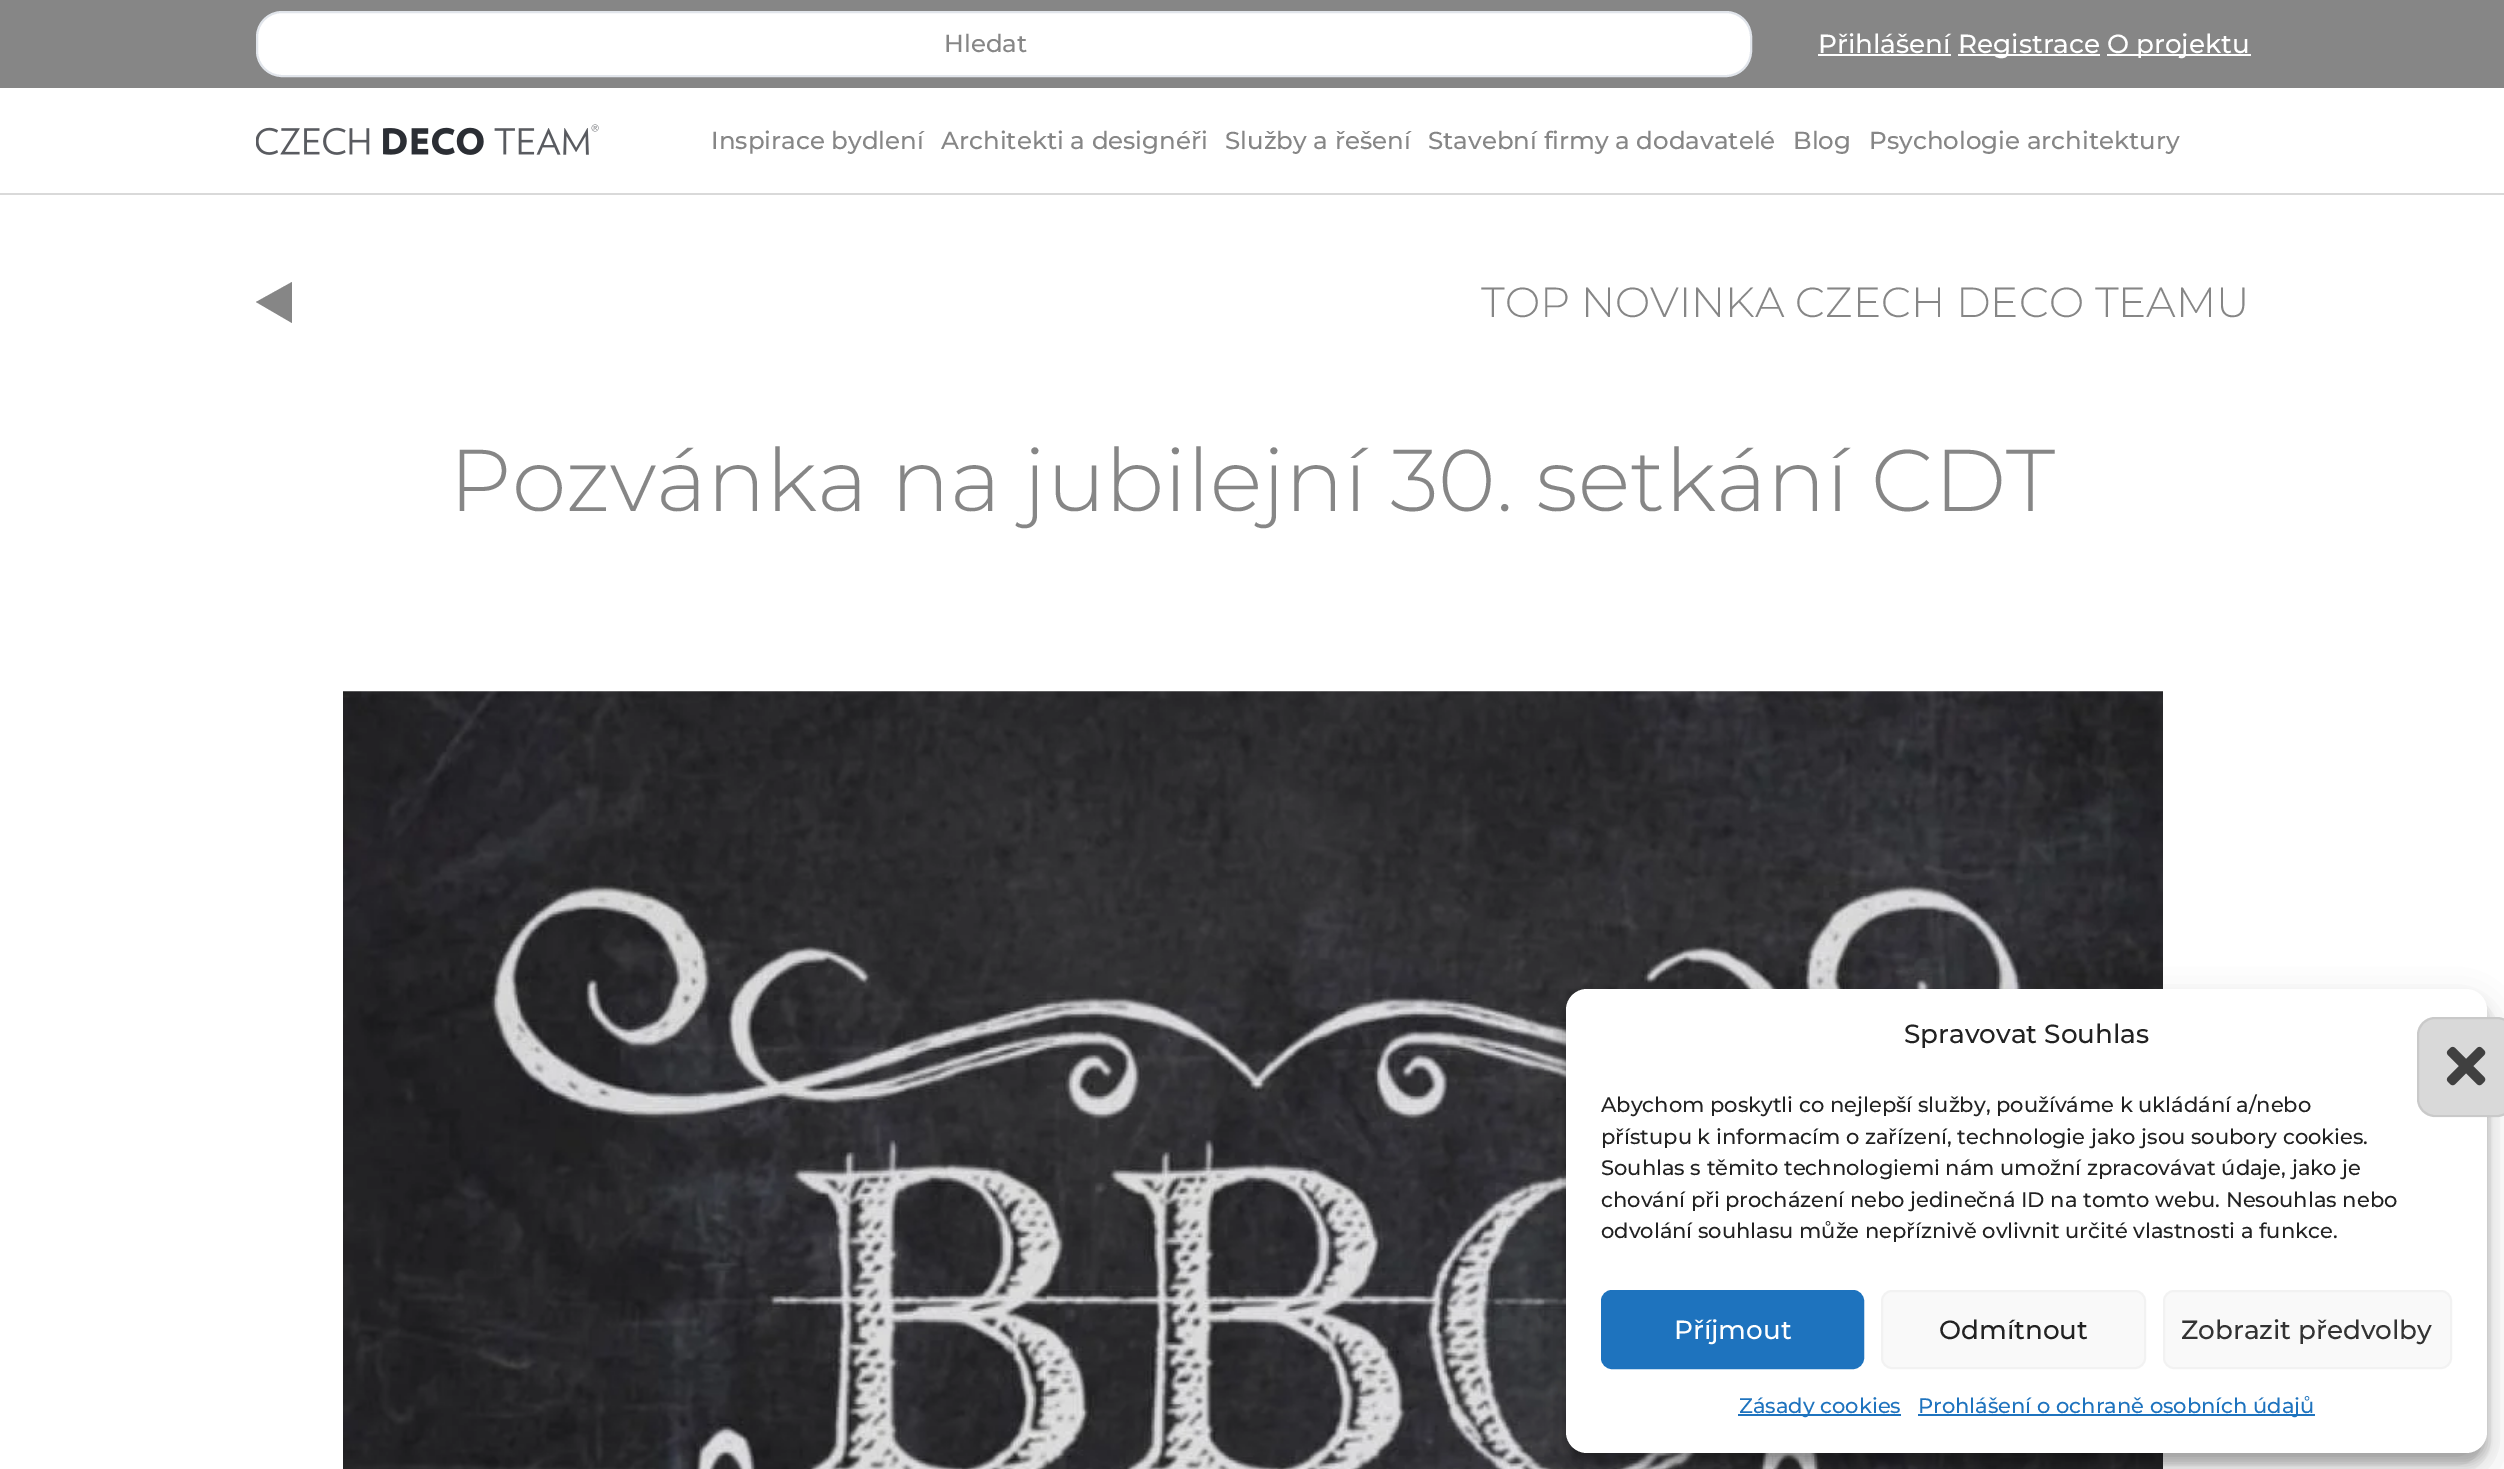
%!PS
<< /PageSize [2504 1469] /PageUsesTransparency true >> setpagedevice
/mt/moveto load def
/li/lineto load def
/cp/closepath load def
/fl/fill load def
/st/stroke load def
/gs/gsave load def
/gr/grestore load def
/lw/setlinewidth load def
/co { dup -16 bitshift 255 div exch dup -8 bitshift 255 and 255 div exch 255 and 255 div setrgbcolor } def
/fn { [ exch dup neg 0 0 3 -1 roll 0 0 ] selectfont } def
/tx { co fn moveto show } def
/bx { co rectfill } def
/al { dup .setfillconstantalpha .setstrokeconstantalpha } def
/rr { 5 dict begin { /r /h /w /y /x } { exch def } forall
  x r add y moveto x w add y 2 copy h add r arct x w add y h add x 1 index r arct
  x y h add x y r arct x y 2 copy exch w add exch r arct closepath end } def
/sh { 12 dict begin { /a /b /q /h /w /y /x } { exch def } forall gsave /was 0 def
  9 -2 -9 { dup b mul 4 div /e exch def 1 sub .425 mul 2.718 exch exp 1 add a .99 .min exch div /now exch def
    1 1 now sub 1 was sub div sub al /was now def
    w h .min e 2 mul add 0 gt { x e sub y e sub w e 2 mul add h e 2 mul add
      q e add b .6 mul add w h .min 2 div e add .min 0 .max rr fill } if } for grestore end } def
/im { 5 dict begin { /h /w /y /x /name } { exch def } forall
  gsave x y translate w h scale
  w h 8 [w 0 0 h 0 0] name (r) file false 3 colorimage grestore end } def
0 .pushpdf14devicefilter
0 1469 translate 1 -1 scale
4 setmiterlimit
0 0 2504 1469 16#FFFFFF bx
0 0 2504 88 16#868686 bx
16#FFFFFF co
257 12 1494 64 25 rr gs fl gr
16#E1E5EB co
2 lw
st
1818 54 133 2 16#FFFFFF bx
1958 54 142 2 16#FFFFFF bx
2107 54 144 2 16#FFFFFF bx
0 193 2504 2 16#D9D9D9 bx
(media/1.raw) 256 124 343 31 im
16#868686 co
256 302 mt 292 282 li 292 323 li cp fl
(media/2.raw) 343 691 1820 778 im
16#000000 co
1566 999 921 464 21 5 .23 sh
1566 1006 921 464 21 17.5 .19 sh
16#FFFFFF co
1566 989 921 464 21 rr fl
16#D9D9D9 co
2417 1017 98 100 18 rr fl
0.1 al
16#404040 co
2418 1018 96 98 17 rr st
1 al
(media/3.raw) 2446 1046 40 40 im
16#1E73BE co
1602 1291 261 77 10 rr gs fl gr
st
16#F9F9F9 co
1882 1291 263 77 10 rr gs fl gr
16#F2F2F2 co
st
16#F9F9F9 co
2164 1291 287 77 10 rr gs fl gr
16#F2F2F2 co
st
1738 1414 163 2 16#1E73BE bx
1918 1414 397 2 16#1E73BE bx
(Hledat) 944 52 /Montserrat-Medium 24.5 16#868686 tx
(Přihlášení) 1818 53 /Montserrat-Medium 26.25 16#FFFFFF tx
(Registrace) 1958 53 /Montserrat-Medium 26.25 16#FFFFFF tx
(O projektu) 2107 53 /Montserrat-Medium 26.25 16#FFFFFF tx
(Inspirace bydlení) 711 149 /Montserrat-Medium 24.5 16#868686 tx
(Architekti a designéři) 941 149 /Montserrat-Medium 24.5 16#868686 tx
(Služby a řešení) 1225 149 /Montserrat-Medium 24.5 16#868686 tx
(Stavební firmy a dodavatelé) 1428 149 /Montserrat-Medium 24.5 16#868686 tx
(Blog) 1793 149 /Montserrat-Medium 24.5 16#868686 tx
(Psychologie architektury) 1869 149 /Montserrat-Medium 24.5 16#868686 tx
(TOP NOVINKA CZECH DECO TEAMU) 1481 317 /Montserrat-Light 42 16#868686 tx
(Pozvánka na jubilejní 30. setkání CDT) 449 511 /Montserrat-Light 87.5 16#868686 tx
(Spravovat Souhlas) 1904 1043 /Montserrat-Medium 26.25 16#222222 tx
(Abychom poskytli co nejlepší služby, používáme k ukládání a/nebo) 1601 1112 /Montserrat-Medium 21 16#222222 tx
(přístupu k informacím o zařízení, technologie jako jsou soubory cookies.) 1601 1144 /Montserrat-Medium 21 16#222222 tx
(Souhlas s těmito technologiemi nám umožní zpracovávat údaje, jako je) 1601 1175 /Montserrat-Medium 21 16#222222 tx
(chování při procházení nebo jedinečná ID na tomto webu. Nesouhlas nebo) 1601 1207 /Montserrat-Medium 21 16#222222 tx
(odvolání souhlasu může nepříznivě ovlivnit určité vlastnosti a funkce.) 1601 1238 /Montserrat-Medium 21 16#222222 tx
(Příjmout) 1674 1339 /Montserrat-Medium 26.25 16#FFFFFF tx
(Odmítnout) 1939 1339 /Montserrat-Medium 26.25 16#222222 tx
(Zobrazit předvolby) 2181 1339 /Montserrat-Medium 26.25 16#333333 tx
(Zásady cookies) 1739 1413 /Montserrat-Medium 21 16#1E73BE tx
(Prohlášení o ochraně osobních údajů) 1918 1413 /Montserrat-Medium 21 16#1E73BE tx
.poppdf14devicefilter showpage
